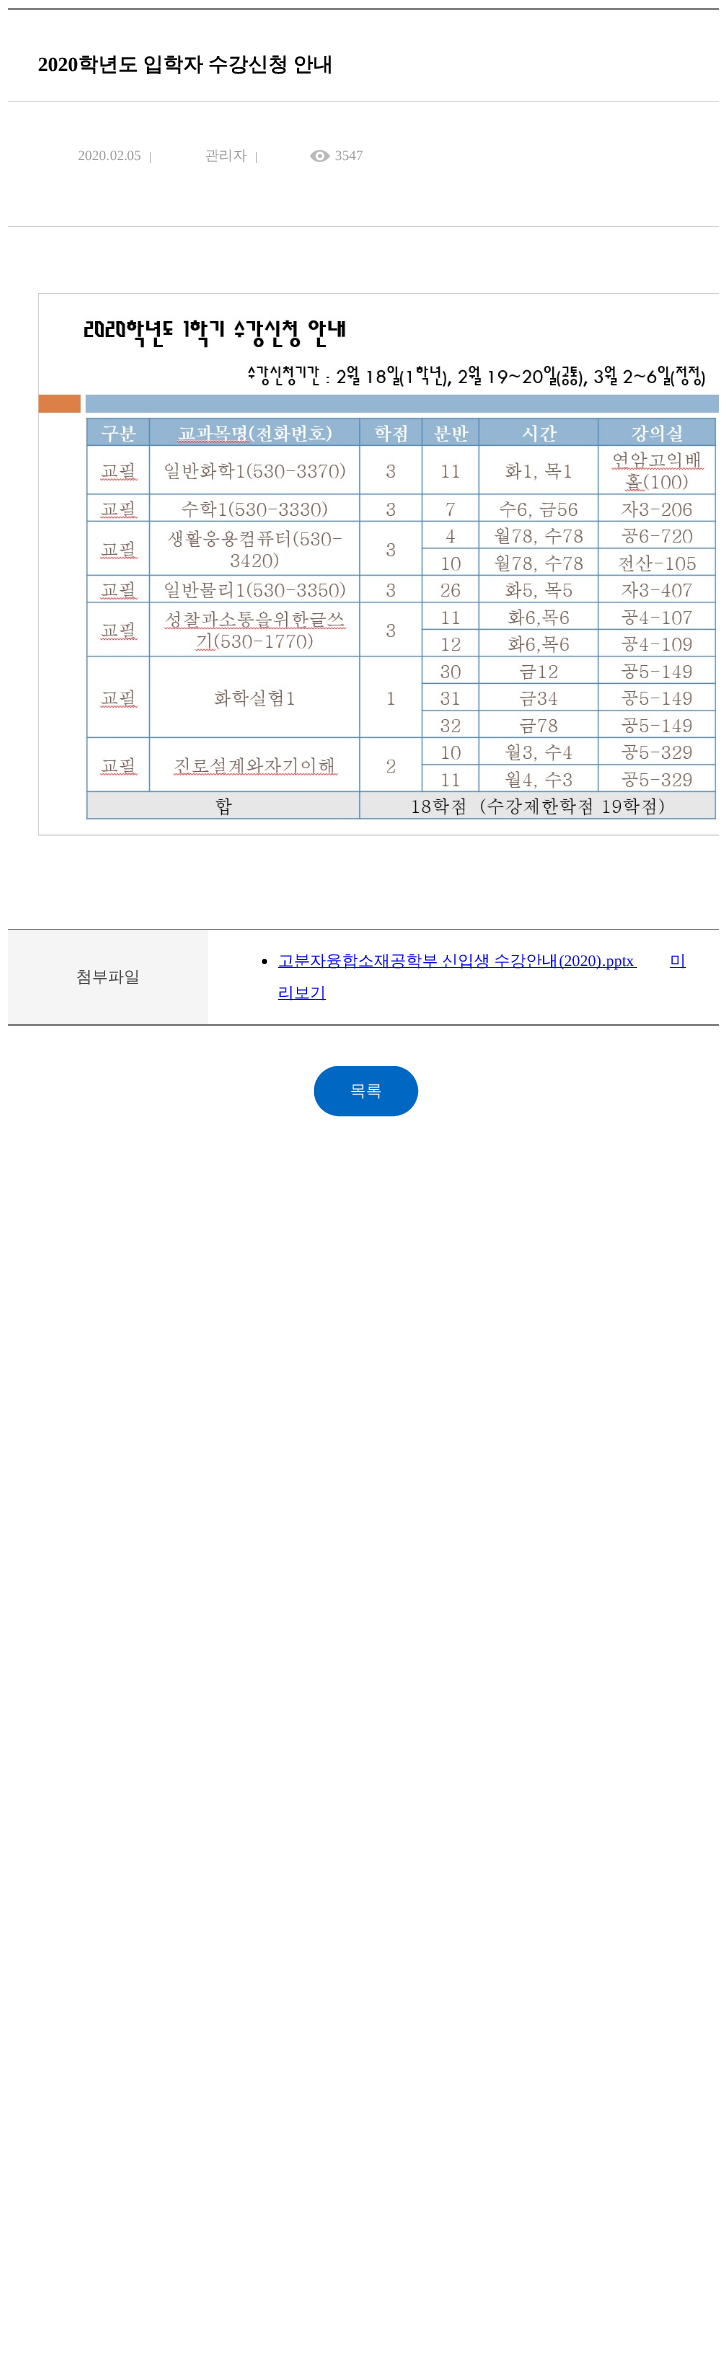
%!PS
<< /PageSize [727 2361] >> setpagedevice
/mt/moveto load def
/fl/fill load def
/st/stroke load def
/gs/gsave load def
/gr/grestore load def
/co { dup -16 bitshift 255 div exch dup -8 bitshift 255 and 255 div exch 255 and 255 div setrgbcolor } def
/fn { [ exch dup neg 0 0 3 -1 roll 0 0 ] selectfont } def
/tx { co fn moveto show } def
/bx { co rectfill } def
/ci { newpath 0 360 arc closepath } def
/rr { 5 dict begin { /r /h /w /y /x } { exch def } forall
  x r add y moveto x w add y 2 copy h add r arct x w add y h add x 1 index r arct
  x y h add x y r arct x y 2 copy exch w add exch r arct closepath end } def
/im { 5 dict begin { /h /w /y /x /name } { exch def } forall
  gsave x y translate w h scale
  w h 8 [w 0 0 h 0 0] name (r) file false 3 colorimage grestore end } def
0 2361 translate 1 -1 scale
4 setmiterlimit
0 0 727 2361 16#FFFFFF bx
8 8 711 2 16#7C7C7C bx
8 101 711 1 16#DADADA bx
8 226 711 1 16#D1D1D1 bx
150 152 1 11 16#C3C3C3 bx
256 152 1 11 16#C3C3C3 bx
(media/1.raw) 310 150 20 12 im
(media/2.raw) 38 293 681 543 im
8 929 711 1 16#7C7C7C bx
8 1024 711 2 16#7C7C7C bx
8 930 200 94 16#F5F5F5 bx
16#000000 co
264.5 961.5 2.5 ci fl
278 967 359 1 16#0000EE bx
670 967 16 1 16#0000EE bx
278 999 48 1 16#0000EE bx
16#0067C3 co
314.5 1066.5 103 49 24.5 rr gs fl gr
st
(2020) 38 71 /LiberationSerif-Bold 20 16#000000 tx
/WenQuanYiZenHei-Bold 20 fn
78 71 mt -1 0 32 (학년도 입학자 수강신청 안내) widthshow
(2020.02.05) 78 160 /LiberationSerif-Regular 14 16#9B9B9B tx
(관리자) 205 160 /WenQuanYiZenHei-Medium 14 16#9B9B9B tx
(3547) 335 160 /LiberationSerif-Regular 14 16#9B9B9B tx
(첨부파일) 76 982 /WenQuanYiZenHei-Medium 16 16#444444 tx
16#0000EE co
278 966 mt -1 0 32 (고분자융합소재공학부 신입생 수강안내) widthshow
(\(2020\).pptx) 559 966 /LiberationSerif-Regular 16 16#0000EE tx
(미) 670 966 /WenQuanYiZenHei-Medium 16 16#0000EE tx
(리보기) 278 998 /WenQuanYiZenHei-Medium 16 16#0000EE tx
(목록) 350 1096 /WenQuanYiZenHei-Medium 16 16#FFFFFF tx
showpage
